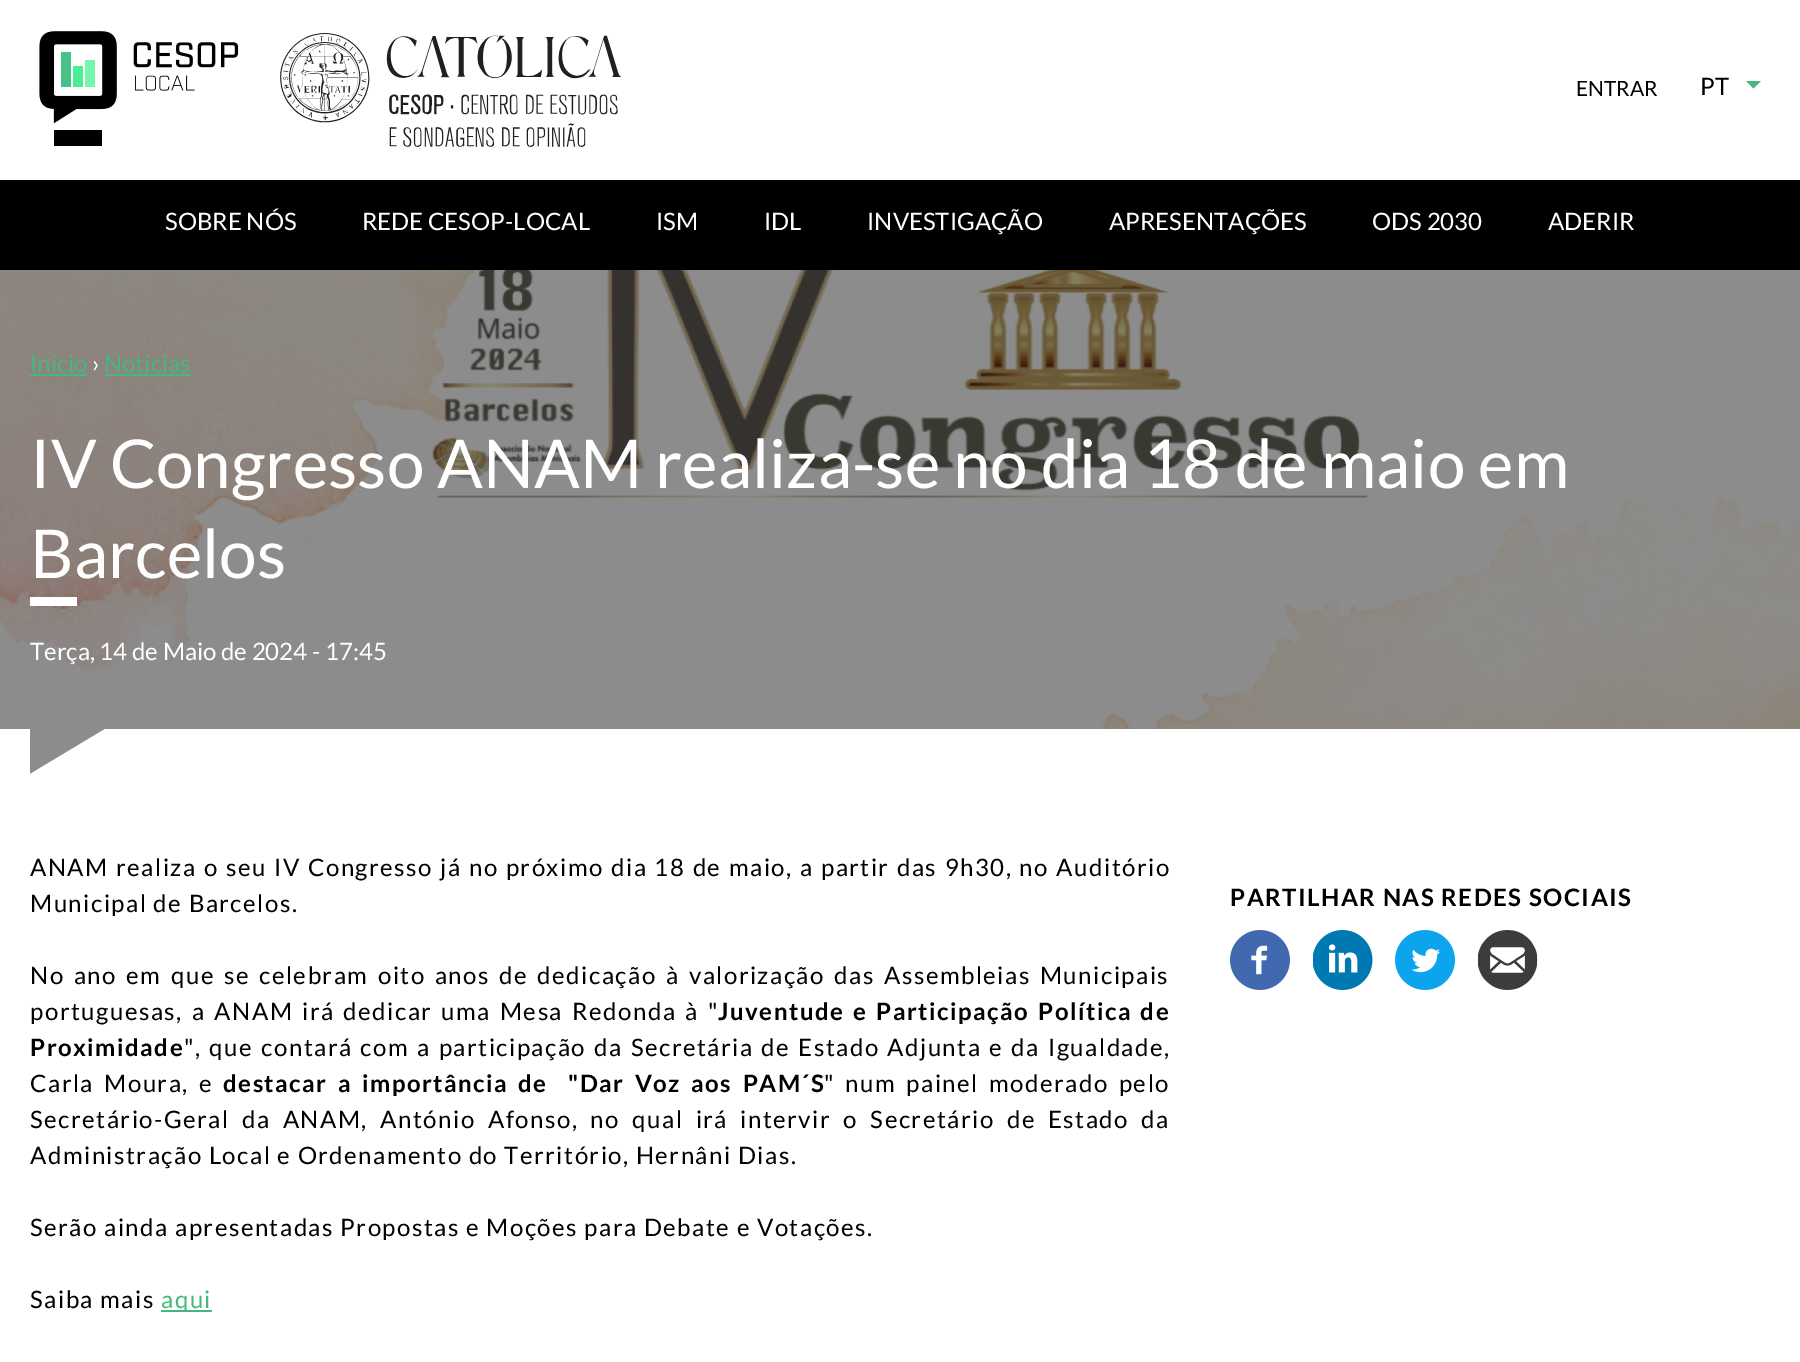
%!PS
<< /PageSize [1800 1362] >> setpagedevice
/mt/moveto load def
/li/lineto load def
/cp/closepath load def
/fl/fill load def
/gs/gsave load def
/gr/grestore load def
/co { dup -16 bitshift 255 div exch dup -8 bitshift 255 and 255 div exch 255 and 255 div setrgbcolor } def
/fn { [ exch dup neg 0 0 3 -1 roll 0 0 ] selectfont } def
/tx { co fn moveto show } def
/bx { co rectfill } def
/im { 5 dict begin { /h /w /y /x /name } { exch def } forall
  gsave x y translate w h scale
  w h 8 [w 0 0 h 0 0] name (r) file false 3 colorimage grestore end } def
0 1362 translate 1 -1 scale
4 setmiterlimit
0 0 1800 1362 16#FFFFFF bx
(media/1.raw) 39 31 200 115 im
(media/2.raw) 280 33 342 114 im
0 180 1800 90 16#000000 bx
16#46B77E co
1746 81 mt 1761 81 li 1753.5 88.5 li cp fl
(media/3.raw) 0 270 1800 504 im
30 374 57 2 16#46B77E bx
105 374 86 2 16#46B77E bx
30 597 47 9 16#FFFFFF bx
0 729 30 45 16#FFFFFF bx
gs
0 270 1800 504 rectclip
105 729 mt 105 819 li 30 774 li cp fl
gr
105 729 1695 45 16#FFFFFF bx
161 1310 51 2 16#46B77E bx
(media/4.raw) 1230 930 60 60 im
(media/5.raw) 1313 930 60 60 im
(media/6.raw) 1395 930 60 60 im
(media/7.raw) 1478 930 60 60 im
(ENTRAR) 1576 96 /Lato-Regular 21 16#000000 tx
(PT) 1700 95 /Lato-Regular 24 16#000000 tx
(SOBRE NÓS) 165 230 /Lato-Regular 24 16#FFFFFF tx
(REDE CESOP-LOCAL) 362 230 /Lato-Regular 24 16#FFFFFF tx
(ISM) 656 230 /Lato-Regular 24 16#FFFFFF tx
(IDL) 764 230 /Lato-Regular 24 16#FFFFFF tx
(INVESTIGAÇÃO) 867 230 /Lato-Regular 24 16#FFFFFF tx
(APRESENTAÇÕES) 1109 230 /Lato-Regular 24 16#FFFFFF tx
(ODS 2030) 1372 230 /Lato-Regular 24 16#FFFFFF tx
(ADERIR) 1548 230 /Lato-Regular 24 16#FFFFFF tx
(Início) 30 372 /Lato-Regular 24 16#46B77E tx
(›) 92 372 /Lato-Regular 24 16#FFFFFF tx
(Notícias) 104 372 /Lato-Regular 24 16#46B77E tx
(IV Congresso ANAM realiza-se no dia 18 de maio em) 30 488 /Lato-Regular 67.5 16#FFFFFF tx
(Barcelos) 30 578 /Lato-Regular 67.5 16#FFFFFF tx
(Terça, 14 de Maio de 2024 - 17:45) 30 660 /Lato-Regular 24 16#FFFFFF tx
16#000000 co
30 876 mt 1.1 0 32 1.5 0 (ANAM realiza o seu IV Congresso já no próximo dia 18 de maio, a partir das 9h30, no Auditório) awidthshow
30 912 mt 1.5 0 (Municipal de Barcelos.) ashow
30 984 mt 3.1 0 32 1.5 0 (No ano em que se celebram oito anos de dedicação à valorização das Assembleias Municipais) awidthshow
30 1020 mt 2.75 0 32 1.5 0 (portuguesas, a ANAM irá dedicar uma Mesa Redonda à ") awidthshow
/Lato-Bold 24 fn
718 1020 mt 2.75 0 32 1.5 0 (Juventude e Participação Política de) awidthshow
30 1056 mt 1.5 0 (Proximidade) ashow
/Lato-Regular 24 fn
184 1056 mt 1.75 0 32 1.5 0 (", que contará com a participação da Secretária de Estado Adjunta e da Igualdade,) awidthshow
30 1092 mt 4 0 32 1.5 0 (Carla Moura, e) awidthshow
/Lato-Bold 24 fn
223 1092 mt 4 0 32 1.5 0 (destacar a importância de  "Dar Voz aos PAM´S) awidthshow
/Lato-Regular 24 fn
824 1092 mt 4 0 32 1.5 0 (" num painel moderado pelo) awidthshow
30 1128 mt 6.1 0 32 1.5 0 (Secretário-Geral da ANAM, António Afonso, no qual irá intervir o Secretário de Estado da) awidthshow
30 1164 mt 1.5 0 (Administração Local e Ordenamento do Território, Hernâni Dias.) ashow
30 1236 mt 1.5 0 (Serão ainda apresentadas Propostas e Moções para Debate e Votações.) ashow
30 1308 mt 1.5 0 (Saiba mais) ashow
16#46B77E co
161 1308 mt 1.5 0 (aqui) ashow
/Lato-Bold 24 fn
16#000000 co
1230 906 mt 1.5 0 (PARTILHAR NAS REDES SOCIAIS) ashow
showpage
